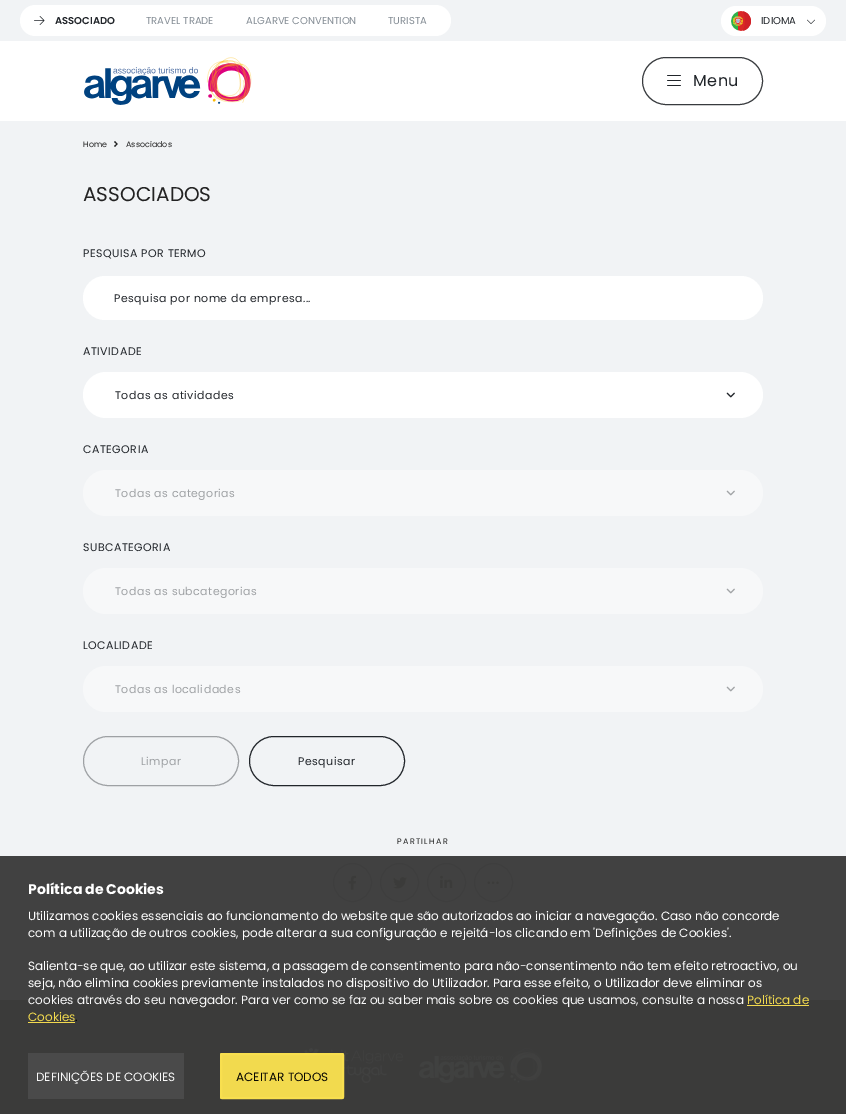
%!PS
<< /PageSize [846 1114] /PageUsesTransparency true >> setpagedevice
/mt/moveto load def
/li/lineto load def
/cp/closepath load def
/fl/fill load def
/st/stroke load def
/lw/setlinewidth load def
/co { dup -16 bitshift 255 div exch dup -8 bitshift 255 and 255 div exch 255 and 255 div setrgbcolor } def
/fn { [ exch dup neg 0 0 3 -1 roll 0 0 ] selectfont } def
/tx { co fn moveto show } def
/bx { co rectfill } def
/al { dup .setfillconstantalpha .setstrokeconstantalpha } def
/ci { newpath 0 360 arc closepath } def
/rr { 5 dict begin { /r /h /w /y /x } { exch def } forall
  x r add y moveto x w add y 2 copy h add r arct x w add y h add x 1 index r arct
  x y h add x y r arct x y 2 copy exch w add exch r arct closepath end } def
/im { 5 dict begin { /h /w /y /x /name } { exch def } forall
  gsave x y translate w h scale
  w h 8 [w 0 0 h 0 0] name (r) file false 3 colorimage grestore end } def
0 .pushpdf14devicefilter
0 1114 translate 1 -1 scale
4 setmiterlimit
0 0 846 1114 16#3B3B3A bx
0 41 846 80 16#FFFFFF bx
0 0 846 41 16#F1F3F5 bx
16#FFFFFF co
20 5 431 31 15.5 rr fl
(media/1.raw) 34 16 11 9 im
721 6 105 30 15 rr fl
(media/2.raw) 731 11 20 20 im
(media/3.raw) 807 19 8 5 im
(media/4.raw) 84 57 168 48 im
16#383B3E co
642.5 57.5 120 47 23.5 rr st
(media/5.raw) 667 75 14 11 im
0 121 846 735 16#F1F3F5 bx
0 856 846 144 16#414141 bx
16#232323 co
115 141 mt 117.5 144 li 117 144.5 li 114 142 li cp fl
117 143.5 mt 117.5 144 li 115 147 li 114 146 li cp fl
16#FFFFFF co
83 276 680 44 22 rr fl
83 372 680 46 23 rr fl
(media/6.raw) 726 392 9 6 im
16#F7F8F9 co
83 470 680 46 23 rr fl
(media/7.raw) 726 490 9 6 im
83 568 680 46 23 rr fl
(media/7.raw) 726 588 9 6 im
83 666 680 46 23 rr fl
(media/7.raw) 726 686 9 6 im
16#9EA1A4 co
83.5 736.5 155 49 24.5 rr st
16#21252A co
249.5 736.5 155 49 24.5 rr st
16#3E3E3E co
352.5 882.5 19 ci st
(media/8.raw) 348 875 9 15 im
399.5 882.5 19 ci st
(media/9.raw) 393 877 14 12 im
446.5 882.5 19 ci st
(media/10.raw) 440 875 13 13 im
493.5 882.5 19 ci st
(media/11.raw) 487 881 12 3 im
747 1005 62 1 16#F2D94E bx
28 1022 47 1 16#F2D94E bx
28 1053 156 46 16#4A4A4A bx
(media/12.raw) 304 1048 99 35 im
0.97 al
16#F8DF4F co
220 1053 124 46 2 rr fl
2 lw
221 1054 122 44 1 rr st
1 al
(media/13.raw) 419 1048 123 35 im
(ASSOCIADO) 55 24 /Poppins-SemiBold 10 16#21252A tx
(TRAVEL TRADE) 146 24 /Poppins-Regular 10 16#868E96 tx
(ALGARVE CONVENTION) 246 24 /Poppins-Regular 10 16#868E96 tx
(TURISTA) 388 24 /Poppins-Regular 10 16#868E96 tx
(IDIOMA) 761 24 /Poppins-Regular 10 16#21252A tx
/Poppins-Regular 16 fn
693 86 mt .5 0 (Menu) ashow
(Home) 83 147 /Poppins-Regular 8 16#232323 tx
(Associados) 126 147 /Poppins-Regular 8 16#232323 tx
(ASSOCIADOS) 83 201 /Poppins-Regular 20 16#232323 tx
/Poppins-Regular 11 fn
16#21252A co
83 257 mt .45 0 (PESQUISA POR TERMO) ashow
114 302 mt .45 0 (Pesquisa por nome da empresa...) ashow
83 355 mt .45 0 (ATIVIDADE) ashow
115 399 mt .45 0 (Todas as atividades) ashow
83 453 mt .45 0 (CATEGORIA) ashow
16#9EA1A4 co
115 497 mt .45 0 (Todas as categorias) ashow
16#21252A co
83 551 mt .45 0 (SUBCATEGORIA) ashow
16#9EA1A4 co
115 595 mt .45 0 (Todas as subcategorias) ashow
16#21252A co
83 649 mt .45 0 (LOCALIDADE) ashow
16#9EA1A4 co
115 693 mt .45 0 (Todas as localidades) ashow
141 765 mt .45 0 (Limpar) ashow
16#21252A co
298 765 mt .45 0 (Pesquisar) ashow
/Poppins-Regular 8 fn
16#232323 co
397 844 mt 1.25 0 (PARTILHAR) ashow
(Política de Cookies) 28 894 /Poppins-Bold 14 16#FFFFFF tx
(Utilizamos cookies essenciais ao funcionamento do website que são autorizados ao iniciar a navegação. Caso não concorde) 28 920 /Poppins-Regular 12 16#FFFFFF tx
(com a utilização de outros cookies, pode alterar a sua configuração e rejeitá-los clicando em 'Definições de Cookies'.) 28 937 /Poppins-Regular 12 16#FFFFFF tx
(Salienta-se que, ao utilizar este sistema, a passagem de consentimento para não-consentimento não tem efeito retroactivo, ou) 28 970 /Poppins-Regular 12 16#FFFFFF tx
(seja, não elimina cookies previamente instalados no dispositivo do Utilizador. Para esse efeito, o Utilizador deve eliminar os) 28 987 /Poppins-Regular 12 16#FFFFFF tx
(cookies através do seu navegador. Para ver como se faz ou saber mais sobre os cookies que usamos, consulte a nossa) 28 1004 /Poppins-Regular 12 16#F9F9F9 tx
(Política de) 747 1004 /Poppins-Regular 12 16#F2DA4E tx
(Cookies) 28 1021 /Poppins-Regular 12 16#F2DA4E tx
(.) 75 1021 /Poppins-Regular 12 16#010101 tx
(DEFINIÇÕES DE COOKIES) 36 1081 /Poppins-Regular 12 16#F9F9F9 tx
(ACEITAR TODOS) 236 1081 /Poppins-Regular 12 16#070702 tx
.poppdf14devicefilter showpage
